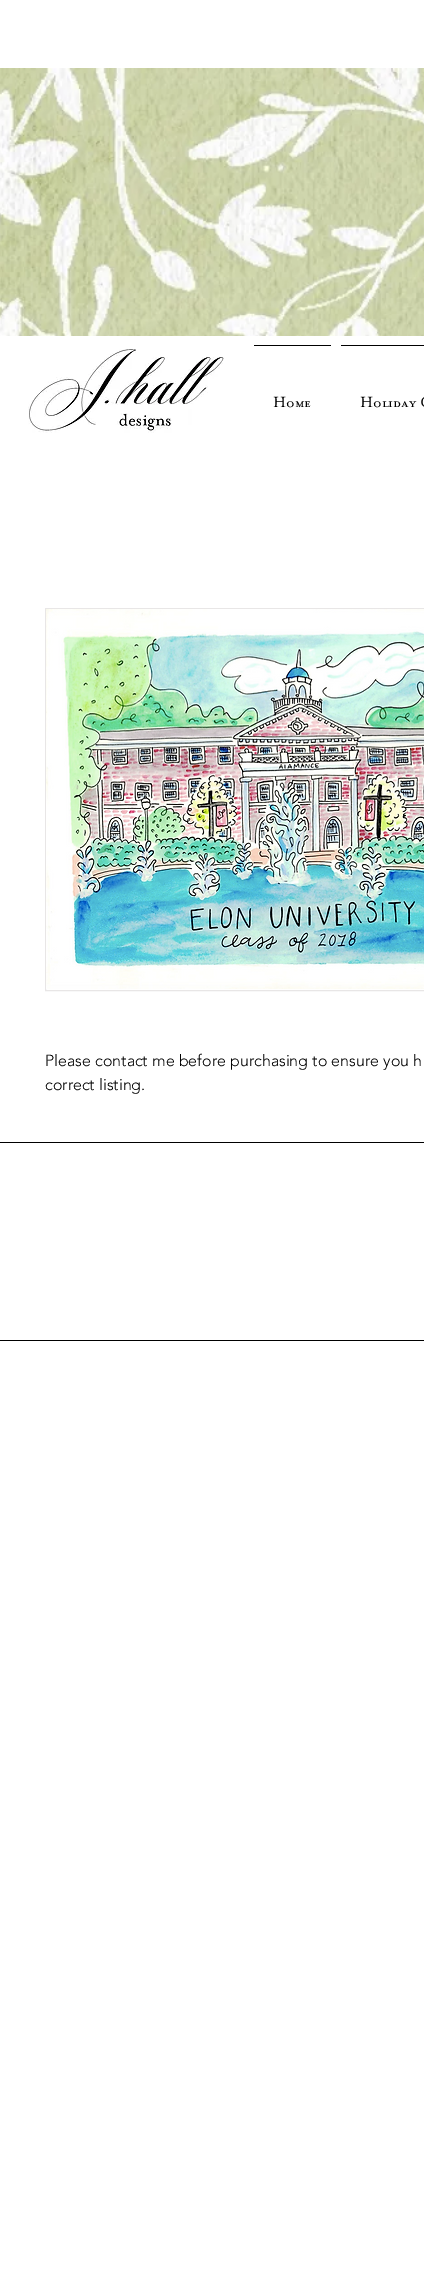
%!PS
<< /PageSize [424 2280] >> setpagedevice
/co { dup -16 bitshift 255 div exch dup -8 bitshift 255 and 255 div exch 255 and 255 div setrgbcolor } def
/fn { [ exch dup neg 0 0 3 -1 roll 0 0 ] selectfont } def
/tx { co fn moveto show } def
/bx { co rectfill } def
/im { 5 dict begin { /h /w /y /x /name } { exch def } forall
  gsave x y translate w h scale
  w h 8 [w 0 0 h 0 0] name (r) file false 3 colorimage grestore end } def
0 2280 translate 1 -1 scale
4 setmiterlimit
0 0 424 2280 16#FFFFFF bx
(media/1.raw) 0 68 424 268 im
(media/2.raw) 28 349 196 84 im
254 345 77 1 16#000000 bx
341 345 83 1 16#000000 bx
16#E8E6E6 co
45.5 608.5 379 382 rectstroke
(media/3.raw) 46 609 378 380 im
0 1142 424 1 16#000000 bx
0 1340 424 1 16#000000 bx
(Home) 273 407 /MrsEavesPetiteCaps-Thin 17 16#000000 tx
(Holiday C) 360 407 /MrsEavesPetiteCaps-Thin 17 16#000000 tx
(Please contact me before purchasing to ensure you h) 45 1066 /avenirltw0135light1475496-Light 16 16#000000 tx
(correct listing.) 45 1090 /avenirltw0135light1475496-Light 16 16#000000 tx
showpage
